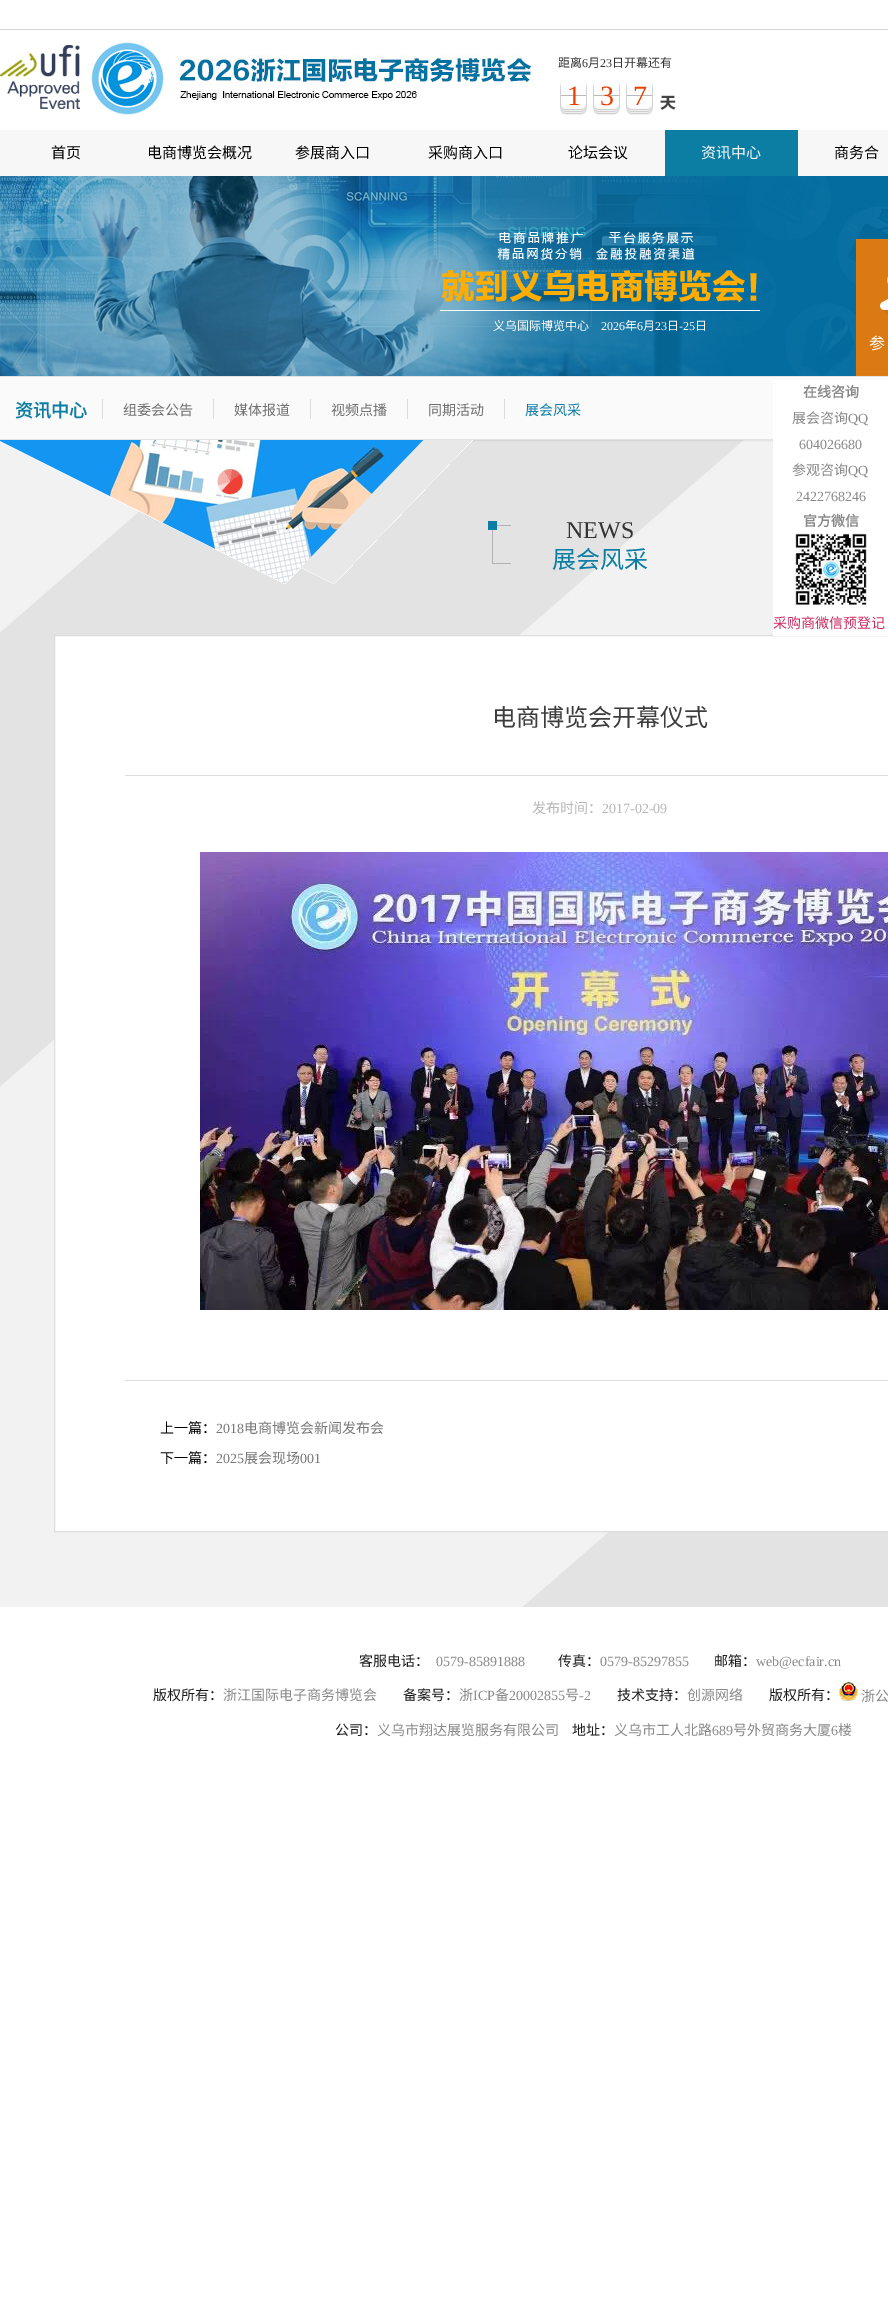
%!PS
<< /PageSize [888 2320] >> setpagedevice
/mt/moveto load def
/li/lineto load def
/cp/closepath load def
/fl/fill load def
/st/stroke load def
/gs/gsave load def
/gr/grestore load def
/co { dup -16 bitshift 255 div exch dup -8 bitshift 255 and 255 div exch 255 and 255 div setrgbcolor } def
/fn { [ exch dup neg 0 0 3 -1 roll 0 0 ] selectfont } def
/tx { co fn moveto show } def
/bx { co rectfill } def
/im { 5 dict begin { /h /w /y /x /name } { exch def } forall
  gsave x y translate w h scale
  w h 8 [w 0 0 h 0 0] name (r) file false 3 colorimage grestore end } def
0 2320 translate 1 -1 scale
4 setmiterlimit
0 0 888 2320 16#FFFFFF bx
0 29 888 1 16#D4D4D4 bx
(media/1.raw) 87 38 448 79 im
(media/2.raw) 0 45 80 64 im
(media/3.raw) 660 95 16 15 im
(media/4.raw) 560 79 27 36 im
(media/4.raw) 593 79 27 36 im
(media/4.raw) 626 79 27 36 im
0 130 888 46 16#F7F7F7 bx
665 130 133 46 16#0C7EA4 bx
(media/5.raw) 0 176 888 200 im
(media/6.raw) 440 231 320 80 im
(media/7.raw) 856 239 32 137 im
0 377 888 62 16#FAFAFA bx
0 376 888 1 16#E3E3E3 bx
0 439 773 1 16#E3E3E3 bx
102 399 1 20 16#DDDDDD bx
213 399 1 20 16#DDDDDD bx
310 399 1 20 16#DDDDDD bx
407 399 1 20 16#DDDDDD bx
504 399 1 20 16#DDDDDD bx
(media/8.raw) 0 440 888 1167 im
(media/9.raw) 0 440 473 144 im
(media/10.raw) 488 521 23 43 im
16#FFFFFF co
54.5 635.5 mt 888.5 635.5 li 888.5 1531.5 li 54.5 1531.5 li cp gs fl gr
16#DDDDDD co
st
125 775 763 1 16#DDDDDD bx
125 1380 763 1 16#DDDDDD bx
(media/11.raw) 200 852 688 458 im
773 380 115 256 16#FFFFFF bx
(media/12.raw) 795 533 72 72 im
(media/13.raw) 839 1681 19 20 im
(距离) 558 67 /NotoSansCJKSC-Regular 12 16#333333 tx
(6) 582 67 /LiberationSerif-Regular 12 16#333333 tx
(月) 588 67 /NotoSansCJKSC-Regular 12 16#333333 tx
(23) 600 67 /LiberationSerif-Regular 12 16#333333 tx
(日开幕还有) 612 67 /NotoSansCJKSC-Regular 12 16#333333 tx
(1) 567 105 /LiberationSerif-Regular 28 16#EC3D00 tx
(3) 600 105 /LiberationSerif-Regular 28 16#EC3D00 tx
(7) 633 105 /LiberationSerif-Regular 28 16#EC3D00 tx
(首页) 51 158 /NotoSansCJKSC-Regular 15 16#000000 tx
(电商博览会概况) 147 158 /NotoSansCJKSC-Regular 15 16#000000 tx
(参展商入口) 295 158 /NotoSansCJKSC-Regular 15 16#000000 tx
(采购商入口) 428 158 /NotoSansCJKSC-Regular 15 16#000000 tx
(论坛会议) 568 158 /NotoSansCJKSC-Regular 15 16#000000 tx
(资讯中心) 701 158 /NotoSansCJKSC-Regular 15 16#FFFFFF tx
(商务合) 834 158 /NotoSansCJKSC-Regular 15 16#000000 tx
(义乌国际博览中心) 493 330 /NotoSansCJKSC-Regular 12 16#FFFFFF tx
(2026) 601 330 /LiberationSerif-Regular 12 16#FFFFFF tx
(年) 625 330 /NotoSansCJKSC-Regular 12 16#FFFFFF tx
(6) 637 330 /LiberationSerif-Regular 12 16#FFFFFF tx
(月) 643 330 /NotoSansCJKSC-Regular 12 16#FFFFFF tx
(23) 655 330 /LiberationSerif-Regular 12 16#FFFFFF tx
(日) 667 330 /NotoSansCJKSC-Regular 12 16#FFFFFF tx
(-25) 679 330 /LiberationSerif-Regular 12 16#FFFFFF tx
(日) 695 330 /NotoSansCJKSC-Regular 12 16#FFFFFF tx
(参) 869 349 /NotoSansCJKSC-Regular 16 16#FFFFFF tx
(资讯中心) 15 417 /NotoSansCJKSC-Bold 18 16#0C7EA4 tx
(组委会公告) 123 415 /NotoSansCJKSC-Regular 14 16#6F6F6F tx
(媒体报道) 234 415 /NotoSansCJKSC-Regular 14 16#6F6F6F tx
(视频点播) 331 415 /NotoSansCJKSC-Regular 14 16#6F6F6F tx
(同期活动) 428 415 /NotoSansCJKSC-Regular 14 16#6F6F6F tx
(展会风采) 525 415 /NotoSansCJKSC-Regular 14 16#0C7EA4 tx
(NEWS) 566 538 /LiberationSerif-Regular 24 16#333333 tx
(展会风采) 552 568 /NotoSansCJKSC-Regular 24 16#0C7EA4 tx
(电商博览会开幕仪式) 492 726 /NotoSansCJKSC-Regular 24 16#3D3D3D tx
(发布时间：) 532 813 /NotoSansCJKSC-Regular 14 16#B7B7B7 tx
(2017-02-09) 602 813 /LiberationSerif-Regular 14 16#B7B7B7 tx
(上一篇：) 160 1433 /NotoSansCJKSC-Regular 14 16#000000 tx
(2018) 216 1433 /LiberationSerif-Regular 14 16#787878 tx
(电商博览会新闻发布会) 244 1433 /NotoSansCJKSC-Regular 14 16#787878 tx
(下一篇：) 160 1463 /NotoSansCJKSC-Regular 14 16#000000 tx
(2025) 216 1463 /LiberationSerif-Regular 14 16#787878 tx
(展会现场) 244 1463 /NotoSansCJKSC-Regular 14 16#787878 tx
(001) 300 1463 /LiberationSerif-Regular 14 16#787878 tx
(在线咨询) 803 397 /NotoSansCJKSC-Bold 14 16#898989 tx
(展会咨询) 792 423 /NotoSansCJKSC-Regular 14 16#898989 tx
(QQ) 848 423 /LiberationSerif-Regular 14 16#898989 tx
(604026680) 799 449 /LiberationSerif-Regular 14 16#898989 tx
(参观咨询) 792 475 /NotoSansCJKSC-Regular 14 16#898989 tx
(QQ) 848 475 /LiberationSerif-Regular 14 16#898989 tx
(2422768246) 796 501 /LiberationSerif-Regular 14 16#898989 tx
(官方微信) 803 526 /NotoSansCJKSC-Bold 14 16#898989 tx
(采购商微信预登记) 773 628 /NotoSansCJKSC-Regular 14 16#C92C61 tx
(客服电话：) 359 1666 /NotoSansCJKSC-Regular 14 16#1C1C1C tx
(0579-85891888) 436 1666 /LiberationSerif-Regular 14 16#898989 tx
(传真：) 558 1666 /NotoSansCJKSC-Regular 14 16#1C1C1C tx
(0579-85297855) 600 1666 /LiberationSerif-Regular 14 16#898989 tx
(邮箱：) 714 1666 /NotoSansCJKSC-Regular 14 16#1C1C1C tx
(web@ecfair.cn) 756 1666 /LiberationSerif-Regular 14 16#898989 tx
(版权所有：) 153 1700 /NotoSansCJKSC-Regular 14 16#1C1C1C tx
(浙江国际电子商务博览会) 223 1700 /NotoSansCJKSC-Regular 14 16#898989 tx
(备案号：) 403 1700 /NotoSansCJKSC-Regular 14 16#1C1C1C tx
(浙) 459 1700 /NotoSansCJKSC-Regular 14 16#898989 tx
(ICP) 473 1700 /LiberationSerif-Regular 14 16#898989 tx
(备) 495 1700 /NotoSansCJKSC-Regular 14 16#898989 tx
(20002855) 509 1700 /LiberationSerif-Regular 14 16#898989 tx
(号) 565 1700 /NotoSansCJKSC-Regular 14 16#898989 tx
(-2) 579 1700 /LiberationSerif-Regular 14 16#898989 tx
(技术支持：) 617 1700 /NotoSansCJKSC-Regular 14 16#1C1C1C tx
(创源网络) 687 1700 /NotoSansCJKSC-Regular 14 16#898989 tx
(版权所有：) 769 1700 /NotoSansCJKSC-Regular 14 16#1C1C1C tx
(浙公) 861 1701 /NotoSansCJKSC-Regular 14 16#898989 tx
(公司：) 335 1735 /NotoSansCJKSC-Regular 14 16#1C1C1C tx
(义乌市翔达展览服务有限公司) 377 1735 /NotoSansCJKSC-Regular 14 16#898989 tx
(地址：) 572 1735 /NotoSansCJKSC-Regular 14 16#1C1C1C tx
(义乌市工人北路) 614 1735 /NotoSansCJKSC-Regular 14 16#898989 tx
(689) 712 1735 /LiberationSerif-Regular 14 16#898989 tx
(号外贸商务大厦) 733 1735 /NotoSansCJKSC-Regular 14 16#898989 tx
(6) 831 1735 /LiberationSerif-Regular 14 16#898989 tx
(楼) 838 1735 /NotoSansCJKSC-Regular 14 16#898989 tx
showpage
